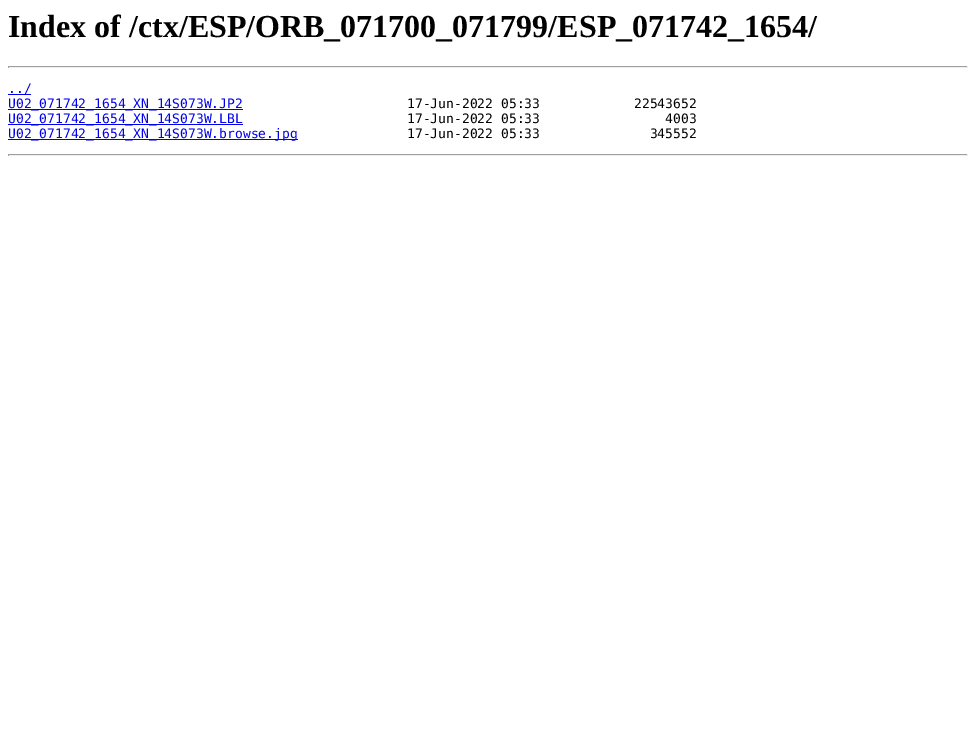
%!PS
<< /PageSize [976 732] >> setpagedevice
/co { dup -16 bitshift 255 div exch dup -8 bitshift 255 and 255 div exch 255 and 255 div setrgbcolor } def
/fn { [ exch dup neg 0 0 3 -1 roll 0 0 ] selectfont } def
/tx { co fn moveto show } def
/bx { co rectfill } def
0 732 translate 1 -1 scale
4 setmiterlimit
0 0 976 732 16#FFFFFF bx
8 66 960 1 16#9F9F9F bx
967 66 1 2 16#EEEEEE bx
8 67 960 1 16#EEEEEE bx
8 66 1 2 16#9F9F9F bx
8 94 23 1 16#0000EE bx
8 109 235 1 16#0000EE bx
8 124 235 1 16#0000EE bx
8 139 290 1 16#0000EE bx
8 154 960 1 16#9F9F9F bx
967 154 1 2 16#EEEEEE bx
8 155 960 1 16#EEEEEE bx
8 154 1 2 16#9F9F9F bx
(Index of /ctx/ESP/ORB_071700_071799/ESP_071742_1654/) 8 37 /LiberationSerif-Bold 32 16#000000 tx
(../) 8 93 /DejaVuSansMono-Regular 13 16#0000EE tx
(U02_071742_1654_XN_14S073W.JP2) 8 108 /DejaVuSansMono-Regular 13 16#0000EE tx
(17-Jun-2022 05:33            22543652) 407 108 /DejaVuSansMono-Regular 13 16#000000 tx
(U02_071742_1654_XN_14S073W.LBL) 8 123 /DejaVuSansMono-Regular 13 16#0000EE tx
(17-Jun-2022 05:33                4003) 407 123 /DejaVuSansMono-Regular 13 16#000000 tx
(U02_071742_1654_XN_14S073W.browse.jpg) 8 138 /DejaVuSansMono-Regular 13 16#0000EE tx
(17-Jun-2022 05:33              345552) 407 138 /DejaVuSansMono-Regular 13 16#000000 tx
showpage
